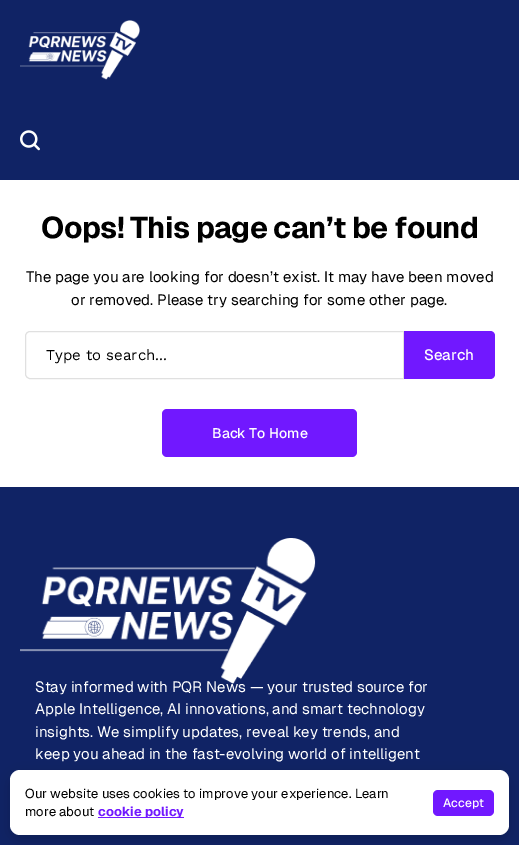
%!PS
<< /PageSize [519 845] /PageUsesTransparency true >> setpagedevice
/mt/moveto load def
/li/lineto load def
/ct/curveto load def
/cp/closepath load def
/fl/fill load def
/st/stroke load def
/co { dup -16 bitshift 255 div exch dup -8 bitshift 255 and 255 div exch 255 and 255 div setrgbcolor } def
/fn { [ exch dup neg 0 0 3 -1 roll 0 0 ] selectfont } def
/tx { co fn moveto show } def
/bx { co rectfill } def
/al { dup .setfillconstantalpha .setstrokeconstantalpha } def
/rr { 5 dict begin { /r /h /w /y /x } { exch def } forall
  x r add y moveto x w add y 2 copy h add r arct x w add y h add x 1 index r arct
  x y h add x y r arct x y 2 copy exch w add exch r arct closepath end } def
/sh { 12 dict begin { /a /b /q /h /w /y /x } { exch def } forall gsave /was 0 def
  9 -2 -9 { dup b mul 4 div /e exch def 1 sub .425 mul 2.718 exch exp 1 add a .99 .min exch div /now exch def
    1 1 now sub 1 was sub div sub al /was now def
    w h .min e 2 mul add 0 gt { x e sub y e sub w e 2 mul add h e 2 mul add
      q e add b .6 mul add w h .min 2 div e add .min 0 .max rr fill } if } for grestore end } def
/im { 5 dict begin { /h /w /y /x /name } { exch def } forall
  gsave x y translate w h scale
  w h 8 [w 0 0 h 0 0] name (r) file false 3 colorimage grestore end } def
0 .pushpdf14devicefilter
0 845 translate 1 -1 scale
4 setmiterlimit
0 0 519 845 16#FFFFFF bx
0 0 519 180 16#102365 bx
(media/1.raw) 20 20 120 60 im
(media/2.raw) 20 130 20 21 im
16#E0E0E0 co
30 331.5 mt 403.5 331.5 li 403.5 378.5 li 30 378.5 li 27.5 378.5 25.5 376.5 25.5 374 ct 25.5 336 li 25.5 333.5 27.5 331.5 30 331.5 ct cp st
16#7118FF co
404 331 mt 490 331 li 493 331 495 333 495 336 ct 495 374 li 495 377 493 379 490 379 ct 404 379 li cp fl
162 409 195 48 5 rr fl
0 487 519 358 16#102365 bx
(media/3.raw) 20 538 296 147 im
16#000000 co
13 778 493 59 7 7.5 .2 sh
16#FFFFFF co
10 770 499 65 10 rr fl
98 817 86 1 16#7118FF bx
433 790 61 26 5 rr fl
/Geist-Bold 30 fn
16#000000 co
41 238 mt -.6 0 (Oops! This page can’t be found) ashow
(The page you are looking for doesn’t exist. It may have been moved) 26 282 /Geist-Regular 15 16#000000 tx
(or removed. Please try searching for some other page.) 71 305 /Geist-Regular 15 16#000000 tx
(Type to search...) 46 360 /WorkSans-Regular 15 16#000000 tx
(Search) 424 360 /Geist-Medium 15 16#FFFFFF tx
(Back To Home) 212 438 /Geist-Medium 14 16#FFFFFF tx
(Stay informed with PQR News — your trusted source for) 35 692 /Geist-Regular 15 16#FFFFFF tx
(Apple Intelligence, AI innovations, and smart technology) 35 714 /Geist-Regular 15 16#FFFFFF tx
(insights. We simplify updates, reveal key trends, and) 35 737 /Geist-Regular 15 16#FFFFFF tx
(keep you ahead in the fast-evolving world of intelligent) 35 759 /Geist-Regular 15 16#FFFFFF tx
(Our website uses cookies to improve your experience. Learn) 25 798 /Geist-Regular 13 16#000000 tx
(more about) 25 816 /Geist-Regular 13 16#000000 tx
(cookie policy) 98 816 /Geist-Bold 13 16#7118FF tx
(Accept) 443 807 /Geist-Medium 12 16#FFFFFF tx
.poppdf14devicefilter showpage
